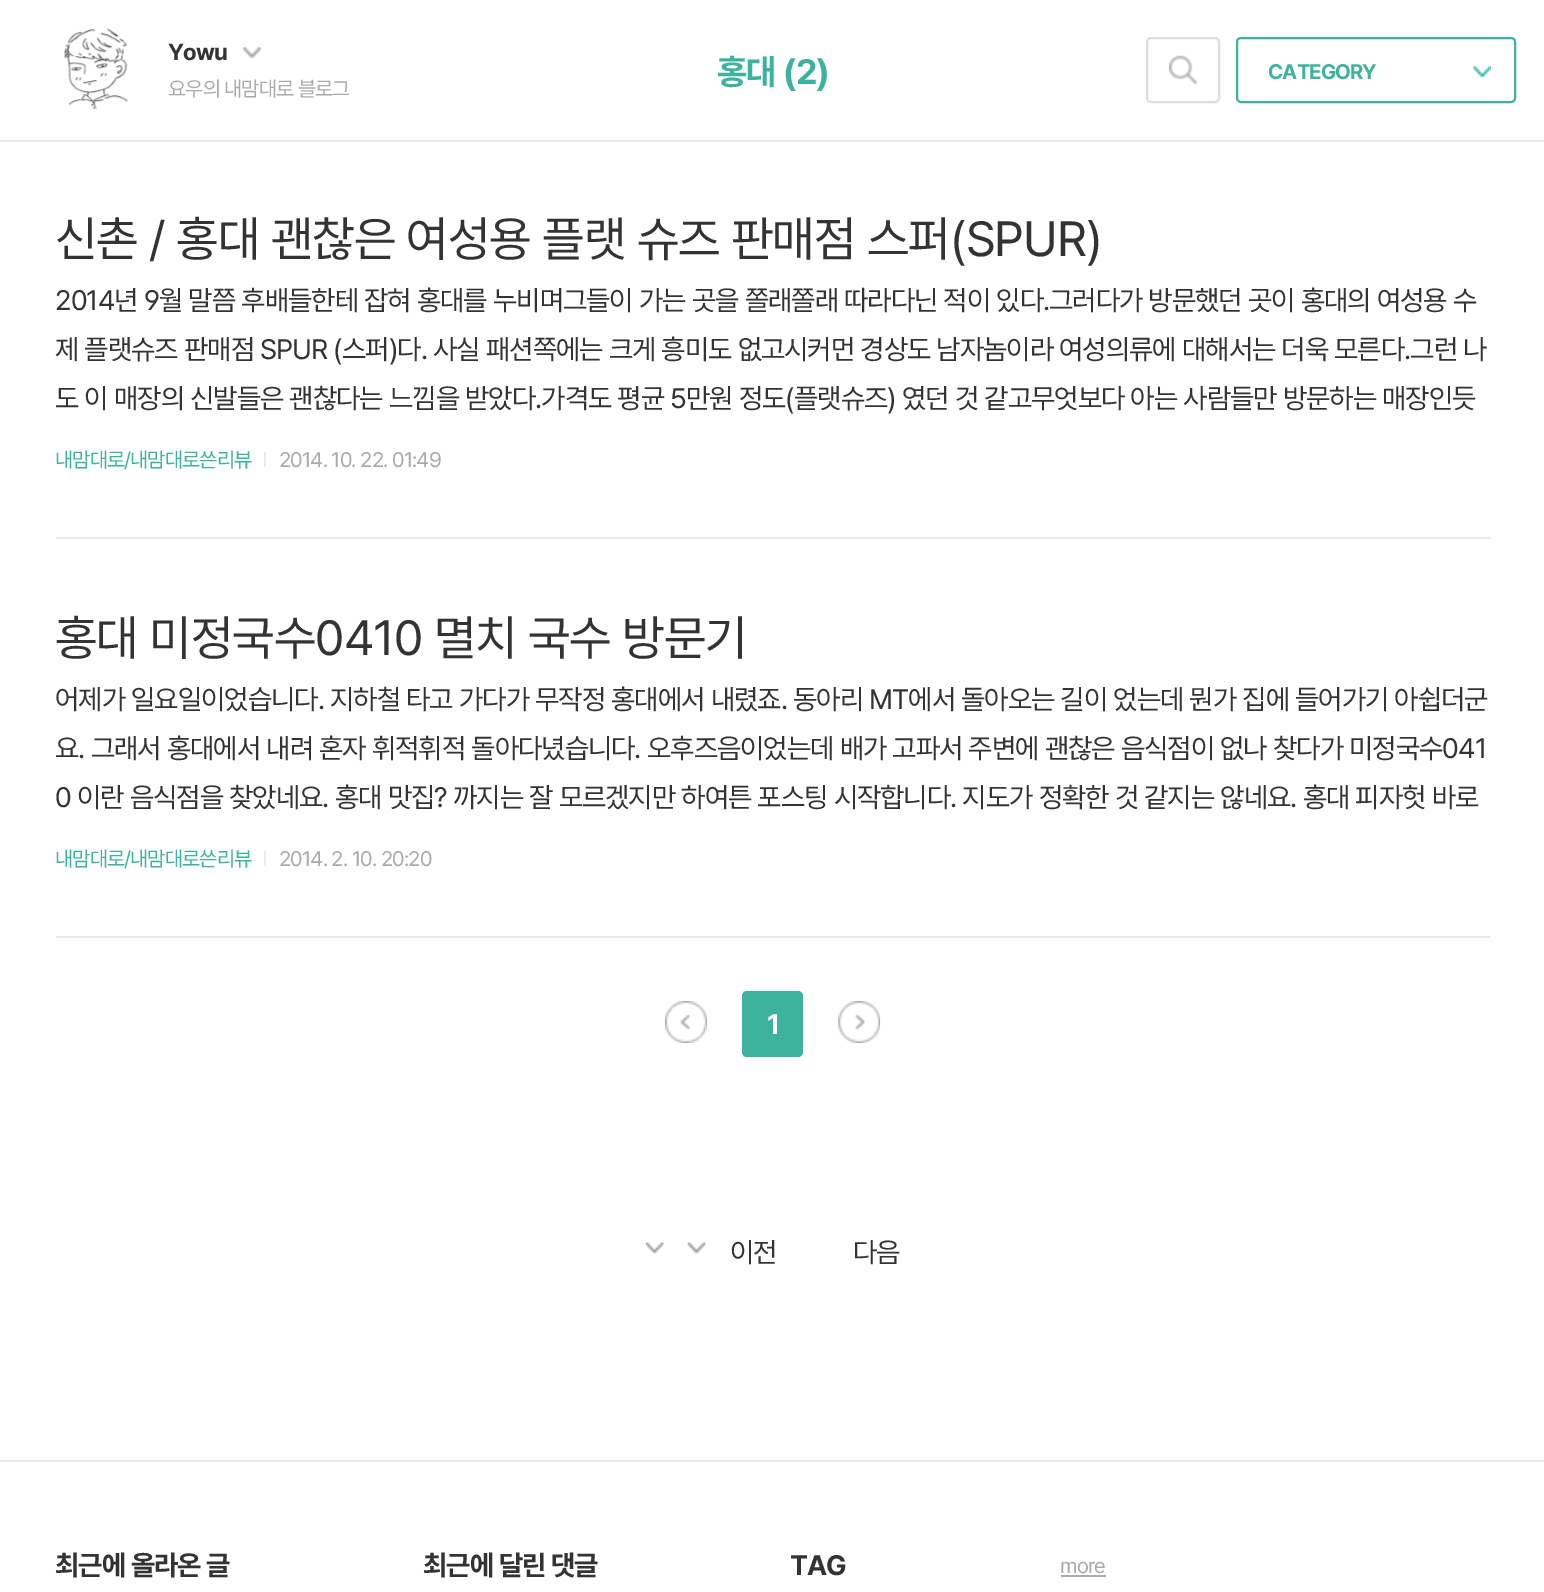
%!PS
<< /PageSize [1544 1592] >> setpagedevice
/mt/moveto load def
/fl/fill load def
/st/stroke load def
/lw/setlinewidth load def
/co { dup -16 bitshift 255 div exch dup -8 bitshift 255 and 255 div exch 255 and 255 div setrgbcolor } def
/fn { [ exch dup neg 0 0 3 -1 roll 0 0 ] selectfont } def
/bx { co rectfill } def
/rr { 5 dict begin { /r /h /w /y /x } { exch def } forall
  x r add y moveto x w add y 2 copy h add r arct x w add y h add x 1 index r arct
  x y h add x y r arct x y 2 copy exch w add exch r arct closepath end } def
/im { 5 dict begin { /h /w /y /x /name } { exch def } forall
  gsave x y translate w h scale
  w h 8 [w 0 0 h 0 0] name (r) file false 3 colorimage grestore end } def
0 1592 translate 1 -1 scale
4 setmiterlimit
0 0 1544 1592 16#FFFFFF bx
0 140 1544 2 16#EBEBEB bx
(media/1.raw) 63 28 65 82 im
(media/2.raw) 242 47 20 12 im
16#DDDDDD co
2 lw
1147 38 72 64 4 rr st
(media/3.raw) 1169 55 28 30 im
16#3DB39E co
1237 38 278 64 4 rr st
(media/4.raw) 1473 66 18 12 im
56 537 1435 2 16#EBEBEB bx
264 452 2 15 16#EBEBEB bx
56 936 1435 2 16#EBEBEB bx
264 851 2 15 16#EBEBEB bx
(media/5.raw) 665 1001 42 42 im
16#3DB39E co
742 991 61 66 5 rr fl
(media/6.raw) 838 1001 43 42 im
(media/7.raw) 645 1242 19 12 im
(media/8.raw) 687 1242 19 12 im
0 1460 1544 2 16#EBEBEB bx
1061 1575 45 2 16#AAAAAA bx
/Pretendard-Bold 23 fn
16#333333 co
168 60 mt -.88 0 (Yowu) ashow
/Pretendard-Regular 21 fn
16#AAAAAA co
168 96 mt -.88 0 (요우의 내맘대로 블로그) ashow
/Pretendard-Bold 35 fn
16#3DB39E co
717 84 mt -.88 0 (홍대 \(2\)) ashow
/Pretendard-Bold 21 fn
1268 79 mt -.88 0 (CATEGORY) ashow
/Pretendard-Regular 49 fn
16#333333 co
55 256 mt -.88 0 (신촌 / 홍대 괜찮은 여성용 플랫 슈즈 판매점 스퍼\(SPUR\)) ashow
/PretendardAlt-Regular 28 fn
55 310 mt -.88 0 (2014년 9월 말쯤 후배들한테 잡혀 홍대를 누비며그들이 가는 곳을 쫄래쫄래 따라다닌 적이 있다.그러다가 방문했던 곳이 홍대의 여성용 수) ashow
/Pretendard-Regular 28 fn
55 359 mt -.88 0 (제 플랫슈즈 판매점 SPUR \(스퍼\)다. 사실 패션쪽에는 크게 흥미도 없고시커먼 경상도 남자놈이라 여성의류에 대해서는 더욱 모른다.그런 나) ashow
55 408 mt -.88 0 (도 이 매장의 신발들은 괜찮다는 느낌을 받았다.가격도 평균 5만원 정도\(플랫슈즈\) 였던 것 같고무엇보다 아는 사람들만 방문하는 매장인듯) ashow
/Pretendard-Regular 21 fn
16#3DB39E co
55 467 mt -.88 0 (내맘대로/내맘대로쓴리뷰) ashow
16#AAAAAA co
279 467 mt -.88 0 (2014. 10. 22. 01:49) ashow
/Pretendard-Regular 49 fn
16#333333 co
55 655 mt -.88 0 (홍대 미정국수0410 멸치 국수 방문기) ashow
/Pretendard-Regular 28 fn
55 709 mt -.88 0 (어제가 일요일이었습니다. 지하철 타고 가다가 무작정 홍대에서 내렸죠. 동아리 MT에서 돌아오는 길이 었는데 뭔가 집에 들어가기 아쉽더군) ashow
55 758 mt -.88 0 (요. 그래서 홍대에서 내려 혼자 휘적휘적 돌아다녔습니다. 오후즈음이었는데 배가 고파서 주변에 괜찮은 음식점이 없나 찾다가 미정국수041) ashow
55 807 mt -.88 0 (0 이란 음식점을 찾았네요. 홍대 맛집? 까지는 잘 모르겠지만 하여튼 포스팅 시작합니다. 지도가 정확한 것 같지는 않네요. 홍대 피자헛 바로) ashow
/Pretendard-Regular 21 fn
16#3DB39E co
55 866 mt -.88 0 (내맘대로/내맘대로쓴리뷰) ashow
16#AAAAAA co
279 866 mt -.88 0 (2014. 2. 10. 20:20) ashow
/Pretendard-Bold 28 fn
16#FFFFFF co
767 1034 mt -.88 0 (1) ashow
/Pretendard-Regular 28 fn
16#333333 co
730 1262 mt -.88 0 (이전) ashow
853 1262 mt -.88 0 (다음) ashow
/Pretendard-Bold 28 fn
55 1575 mt -.88 0 (최근에 올라온 글) ashow
423 1575 mt -.88 0 (최근에 달린 댓글) ashow
790 1575 mt -.88 0 (TAG) ashow
/Pretendard-Regular 21 fn
16#AAAAAA co
1060 1573 mt -.88 0 (more) ashow
showpage
